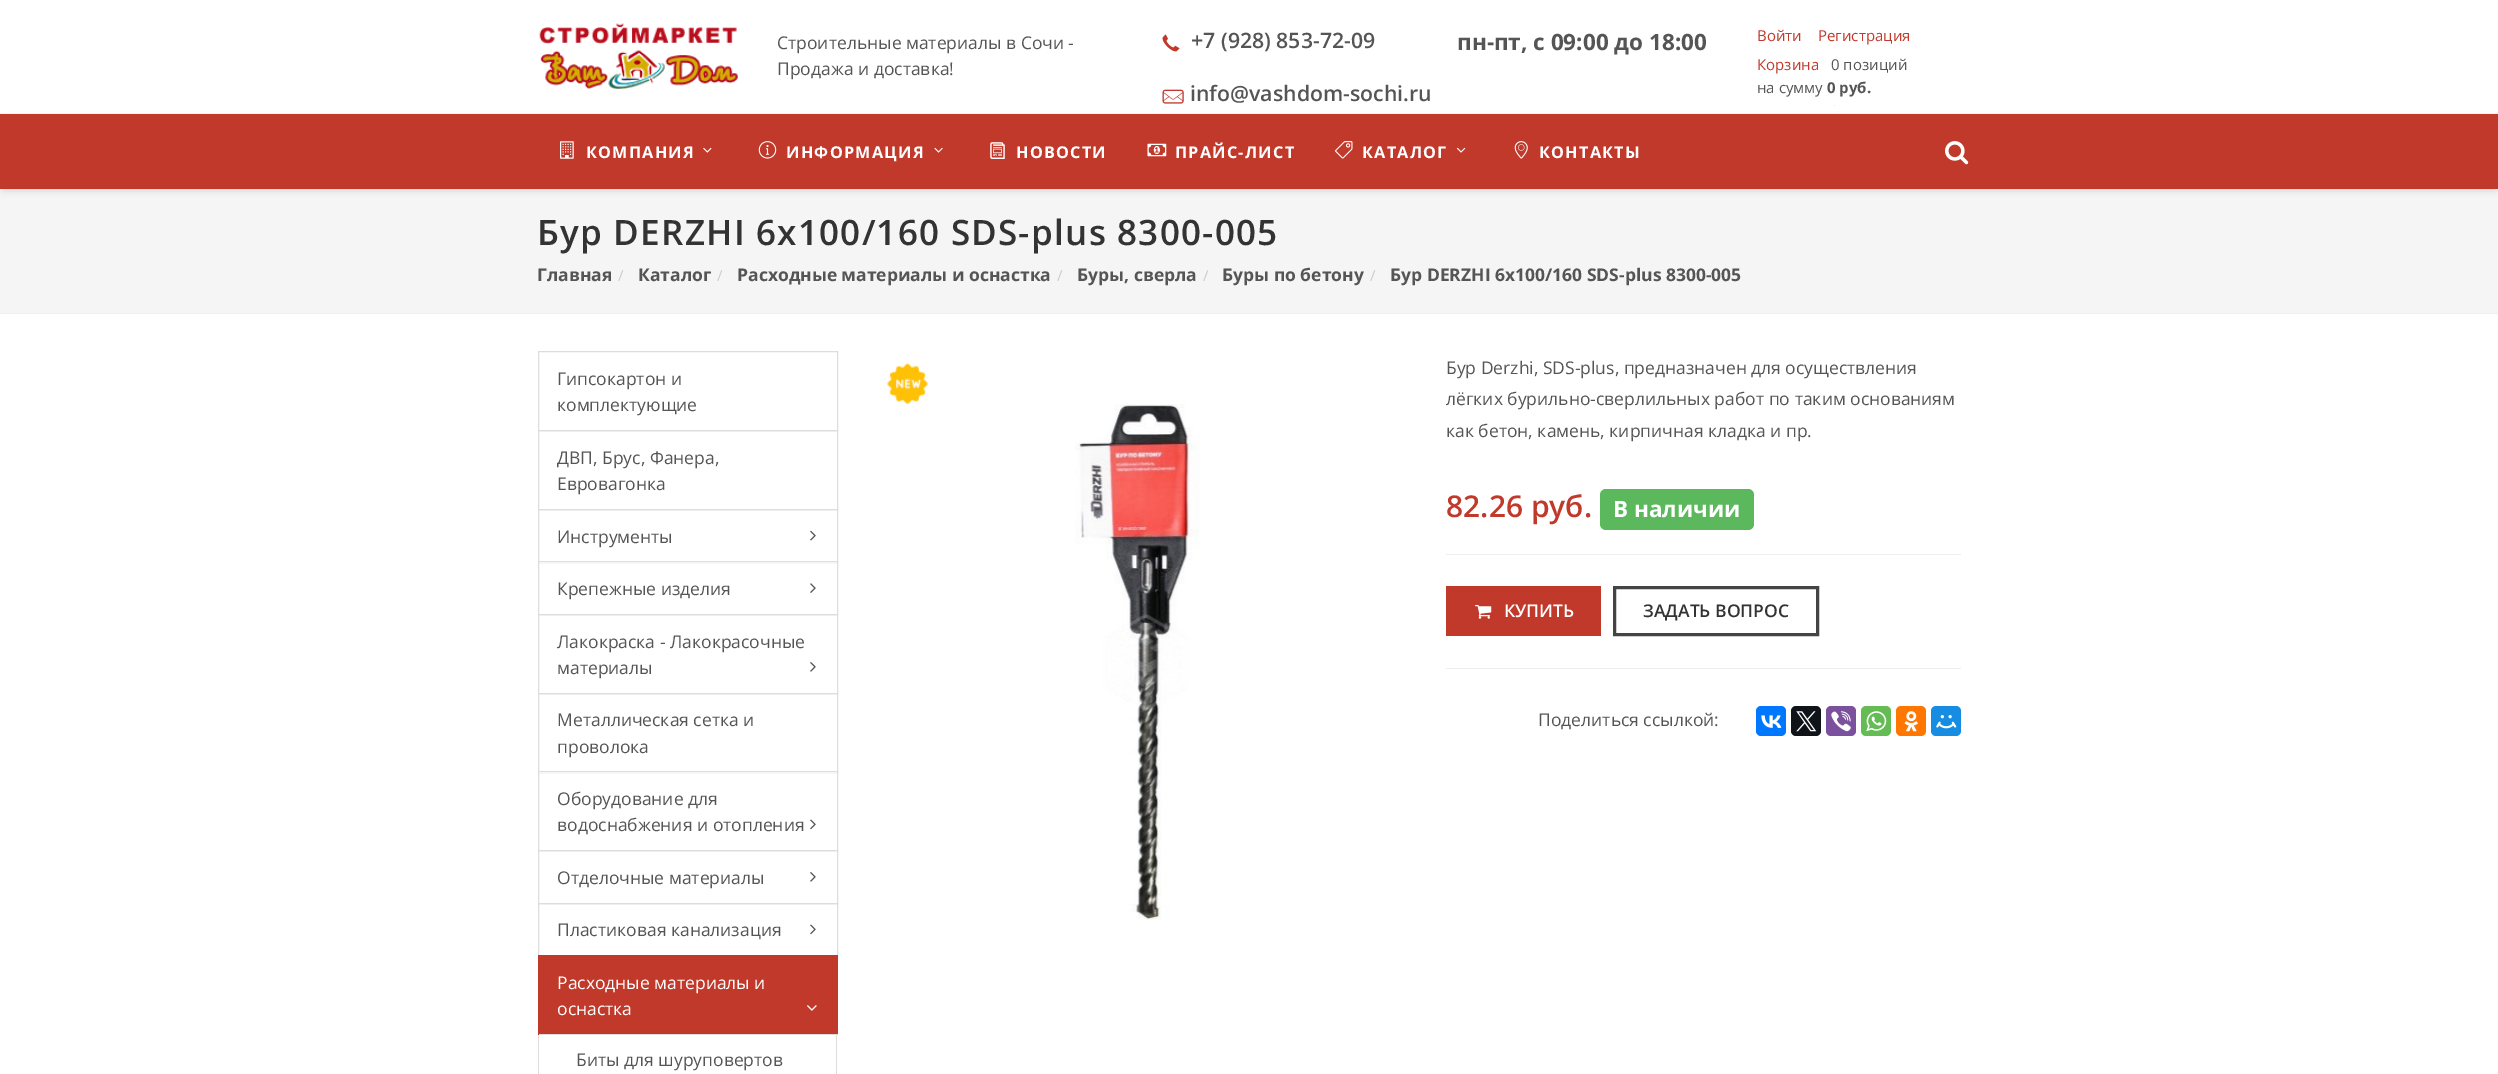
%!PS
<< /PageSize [2498 1074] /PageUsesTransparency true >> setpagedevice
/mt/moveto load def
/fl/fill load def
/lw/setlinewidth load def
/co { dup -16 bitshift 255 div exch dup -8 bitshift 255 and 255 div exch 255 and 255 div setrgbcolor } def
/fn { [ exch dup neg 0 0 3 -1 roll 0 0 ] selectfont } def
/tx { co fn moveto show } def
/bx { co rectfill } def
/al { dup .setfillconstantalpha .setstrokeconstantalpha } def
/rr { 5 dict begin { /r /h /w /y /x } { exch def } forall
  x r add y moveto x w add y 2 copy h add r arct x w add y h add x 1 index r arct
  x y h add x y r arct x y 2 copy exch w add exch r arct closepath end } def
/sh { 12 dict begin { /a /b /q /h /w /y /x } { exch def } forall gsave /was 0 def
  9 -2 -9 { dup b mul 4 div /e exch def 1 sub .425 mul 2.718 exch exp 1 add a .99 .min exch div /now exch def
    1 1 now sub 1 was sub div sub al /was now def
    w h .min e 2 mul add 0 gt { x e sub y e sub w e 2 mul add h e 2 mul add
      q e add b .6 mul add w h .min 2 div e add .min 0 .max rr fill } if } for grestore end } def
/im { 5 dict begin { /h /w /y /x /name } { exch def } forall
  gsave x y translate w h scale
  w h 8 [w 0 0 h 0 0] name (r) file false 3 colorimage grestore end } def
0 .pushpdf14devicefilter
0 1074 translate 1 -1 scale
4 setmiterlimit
0 0 2498 1074 16#FFFFFF bx
(media/1.raw) 539 23 199 66 im
(media/2.raw) 1162 34 18 18 im
(media/3.raw) 1162 89 22 15 im
1834 105 1 1 16#EEEEEE bx
0 189 2498 124 16#F5F5F5 bx
16#000000 co
4 120 2491 69 0 4 .2 sh
0 114 2498 75 16#C0392B bx
0 113 2498 1 16#F5F5F5 bx
(media/4.raw) 560 141 14 18 im
(media/5.raw) 703 147 9 6 im
(media/6.raw) 758 141 19 18 im
(media/7.raw) 934 147 9 6 im
(media/8.raw) 990 142 15 17 im
(media/9.raw) 1147 143 20 14 im
(media/10.raw) 1335 141 18 18 im
(media/11.raw) 1456 147 10 6 im
(media/12.raw) 1514 141 14 18 im
(media/13.raw) 1945 141 24 24 im
0 313 2498 1 16#EEEEEE bx
16#DDDDDD co
538.5 351.5 299 79 rectstroke
538.5 430.5 299 79 rectstroke
538.5 509.5 299 53 rectstroke
(media/14.raw) 810 530 6 11 im
539 562 298 1 16#FFFFFF bx
16#DDDDDD co
538.5 561.5 299 53 rectstroke
(media/15.raw) 810 583 6 10 im
538.5 614.5 299 79 rectstroke
(media/16.raw) 810 662 6 10 im
538.5 693.5 299 79 rectstroke
539 772 298 1 16#FFFFFF bx
16#DDDDDD co
538.5 771.5 299 79 rectstroke
(media/17.raw) 810 819 6 11 im
538.5 850.5 299 53 rectstroke
(media/16.raw) 810 872 6 10 im
538.5 903.5 299 52 rectstroke
(media/17.raw) 810 924 6 11 im
539 955 299 79 16#C0392B bx
836 1034 1 40 16#DDDDDD bx
538 1034 1 40 16#DDDDDD bx
538 1034 300 1 16#DDDDDD bx
538 955 1 80 16#C0392B bx
(media/18.raw) 807 1005 10 6 im
(media/19.raw) 887 363 41 41 im
(media/20.raw) 1075 404 125 516 im
16#5CB85C co
1600 489 154 41 6 rr fl
1446 554 515 1 16#EEEEEE bx
1446 586 155 50 16#C0392B bx
(media/21.raw) 1475 605 17 14 im
16#444444 co
3 lw
1614.5 587.5 203 47 rectstroke
1446 668 515 1 16#EEEEEE bx
16#0077FF co
1756 706 30 30 5 rr fl
(media/22.raw) 1761 715 21 13 im
16#0F1419 co
1791 706 30 30 5 rr fl
(media/23.raw) 1796 711 21 21 im
16#7B519D co
1826 706 30 30 5 rr fl
(media/24.raw) 1831 711 20 21 im
16#65BC54 co
1861 706 30 30 5 rr fl
(media/25.raw) 1866 711 21 21 im
16#FF7700 co
1896 706 30 30 5 rr fl
(media/26.raw) 1904 711 14 21 im
16#168DE2 co
1931 706 30 30 5 rr fl
(media/27.raw) 1936 715 21 14 im
(Строительные материалы в Сочи -) 777 49 /OpenSans-Regular 17.5 16#555555 tx
(Продажа и доставка!) 777 75 /OpenSans-Regular 17.5 16#555555 tx
(+7 \(928\) 853-72-09) 1191 48 /OpenSans-SemiBold 21.25 16#555555 tx
(info@vashdom-sochi.ru) 1190 101 /OpenSans-SemiBold 21.25 16#555555 tx
(пн-пт, с 09:00 до 18:00) 1457 50 /OpenSans-Bold 22.5 16#555555 tx
(Войти) 1757 41 /OpenSans-Regular 15 16#C0392B tx
(Регистрация) 1818 41 /OpenSans-Regular 15 16#C0392B tx
(Корзина) 1757 70 /OpenSans-Regular 15 16#C0392B tx
(0 позиций) 1831 70 /OpenSans-Regular 15 16#555555 tx
(на сумму) 1757 93 /OpenSans-Regular 15 16#555555 tx
(0 руб.) 1827 93 /OpenSans-Bold 15 16#555555 tx
/OpenSans-Bold 16.25 fn
16#FFFFFF co
586 158 mt 1.25 0 (КОМПАНИЯ) ashow
786 158 mt 1.25 0 (ИНФОРМАЦИЯ) ashow
1016 158 mt 1.25 0 (НОВОСТИ) ashow
1175 158 mt 1.25 0 (ПРАЙС-ЛИСТ) ashow
1362 158 mt 1.25 0 (КАТАЛОГ) ashow
1539 158 mt 1.25 0 (КОНТАКТЫ) ashow
/OpenSans-SemiBold 35 fn
16#333333 co
537 245 mt 1.25 0 (Бур DERZHI 6х100/160 SDS-plus 8300-005) ashow
(Главная) 537 281 /OpenSans-Bold 17.5 16#555555 tx
(/) 618 281 /OpenSans-Regular 15 16#CCCCCC tx
(Каталог) 638 281 /OpenSans-Bold 17.5 16#555555 tx
(/) 717 281 /OpenSans-Regular 15 16#CCCCCC tx
(Расходные материалы и оснастка) 737 281 /OpenSans-Bold 17.5 16#555555 tx
(/) 1057 281 /OpenSans-Regular 15 16#CCCCCC tx
(Буры, сверла) 1077 281 /OpenSans-Bold 17.5 16#555555 tx
(/) 1203 281 /OpenSans-Regular 15 16#CCCCCC tx
(Буры по бетону) 1222 281 /OpenSans-Bold 17.5 16#555555 tx
(/) 1370 281 /OpenSans-Regular 15 16#CCCCCC tx
(Бур DERZHI 6х100/160 SDS-plus 8300-005) 1390 281 /OpenSans-Bold 17.5 16#555555 tx
(Гипсокартон и) 557 385 /OpenSans-Regular 17.5 16#555555 tx
(комплектующие) 557 411 /OpenSans-Regular 17.5 16#555555 tx
(ДВП, Брус, Фанера,) 557 464 /OpenSans-Regular 17.5 16#555555 tx
(Евровагонка) 557 490 /OpenSans-Regular 17.5 16#555555 tx
(Инструменты) 557 543 /OpenSans-Regular 17.5 16#555555 tx
(Крепежные изделия) 557 595 /OpenSans-Regular 17.5 16#555555 tx
(Лакокраска - Лакокрасочные) 557 648 /OpenSans-Regular 17.5 16#555555 tx
(материалы) 557 674 /OpenSans-Regular 17.5 16#555555 tx
(Металлическая сетка и) 557 726 /OpenSans-Regular 17.5 16#555555 tx
(проволока) 557 753 /OpenSans-Regular 17.5 16#555555 tx
(Оборудование для) 557 805 /OpenSans-Regular 17.5 16#555555 tx
(водоснабжения и отопления) 557 831 /OpenSans-Regular 17.5 16#555555 tx
(Отделочные материалы) 557 884 /OpenSans-Regular 17.5 16#555555 tx
(Пластиковая канализация) 557 936 /OpenSans-Regular 17.5 16#555555 tx
(Расходные материалы и) 557 989 /OpenSans-Regular 17.5 16#FFFFFF tx
(оснастка) 557 1015 /OpenSans-Regular 17.5 16#FFFFFF tx
(Биты для шуруповертов) 576 1066 /OpenSans-Regular 17.5 16#555555 tx
(Бур Derzhi, SDS-plus, предназначен для осуществления) 1446 374 /OpenSans-Regular 17.5 16#555555 tx
(лёгких бурильно-сверлильных работ по таким основаниям) 1446 405 /OpenSans-Regular 17.5 16#555555 tx
(как бетон, камень, кирпичная кладка и пр.) 1446 437 /OpenSans-Regular 17.5 16#555555 tx
(82.26 руб.) 1446 517 /OpenSans-SemiBold 30 16#C0392B tx
(В наличии) 1613 517 /OpenSans-Bold 22.5 16#FFFFFF tx
(КУПИТЬ) 1504 617 /OpenSans-SemiBold 17.5 16#FFFFFF tx
(ЗАДАТЬ ВОПРОС) 1643 617 /OpenSans-SemiBold 17.5 16#333333 tx
(Поделиться ссылкой:) 1538 726 /OpenSans-Regular 17.5 16#555555 tx
.poppdf14devicefilter showpage
